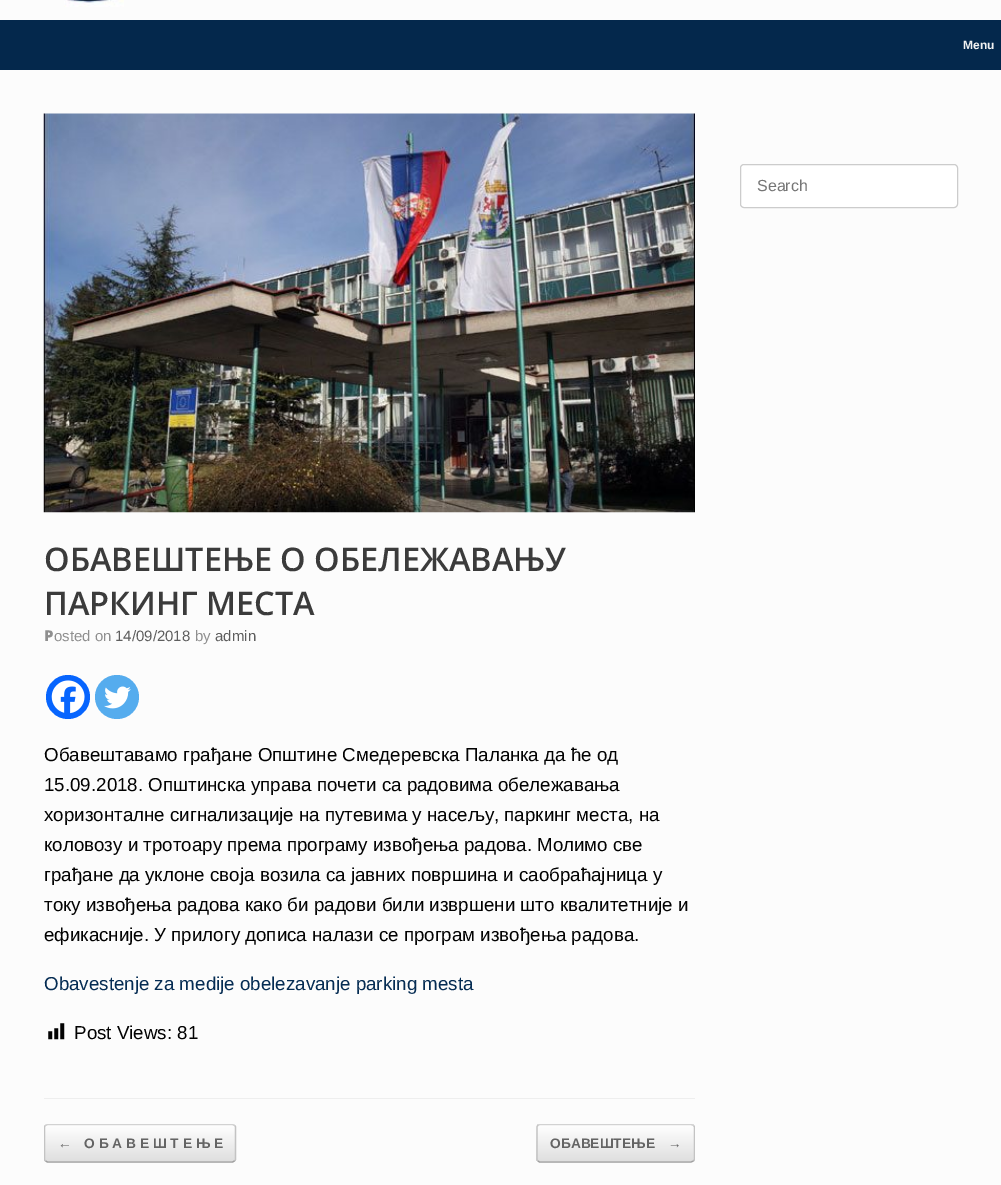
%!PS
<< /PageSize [1001 1185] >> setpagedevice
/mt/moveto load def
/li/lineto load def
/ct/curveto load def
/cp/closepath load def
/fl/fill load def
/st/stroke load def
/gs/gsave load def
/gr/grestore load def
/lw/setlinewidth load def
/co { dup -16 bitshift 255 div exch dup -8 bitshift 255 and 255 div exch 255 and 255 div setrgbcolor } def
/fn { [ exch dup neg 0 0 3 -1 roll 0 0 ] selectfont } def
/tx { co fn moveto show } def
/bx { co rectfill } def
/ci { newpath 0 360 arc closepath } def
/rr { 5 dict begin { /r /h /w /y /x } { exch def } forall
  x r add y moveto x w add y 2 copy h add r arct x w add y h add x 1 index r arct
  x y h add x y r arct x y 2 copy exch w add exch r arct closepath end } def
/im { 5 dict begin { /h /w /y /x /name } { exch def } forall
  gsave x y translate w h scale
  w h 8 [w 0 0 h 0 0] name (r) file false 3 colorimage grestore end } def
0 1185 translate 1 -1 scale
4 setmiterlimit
0 0 1001 1185 16#FCFCFC bx
(media/1.raw) 64 0 60 7 im
0 20 1001 50 16#04284C bx
16#FFFFFF co
740.5 164.5 217 43 3.5 rr gs fl gr
16#CCCCCC co
st
44 1098 651 1 16#EEEEEE bx
(media/2.raw) 43 113 652 400 im
16#0765FE co
68 697 22 ci fl
(media/3.raw) 51 680 34 34 im
16#55ACEE co
117 697 22 ci fl
(media/4.raw) 104 686 27 23 im
(media/5.raw) 48 1023 17 17 im
gs
44 1124 192 39 4 rr clip newpath
gs 44 1125 mt 236 1125 li 236 1161 li 44 1161 li cp clip newpath
<< /ShadingType 2 /ColorSpace /DeviceRGB /Coords [45 1161 45 1125] /Extend [true true] /Function << /FunctionType 2 /Domain [0 1] /C0 [.875 .875 .875] /C1 [1 1 1] /N 1 >> >> shfill gr
gs 44 1161 mt 236 1161 li 236 1163 li 44 1163 li cp clip newpath
<< /ShadingType 2 /ColorSpace /DeviceRGB /Coords [45 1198 45 1161] /Extend [true true] /Function << /FunctionType 2 /Domain [0 1] /C0 [.875 .875 .875] /C1 [1 1 1] /N 1 >> >> shfill gr
gr
gs
44 1124 651 39 rectclip
16#D2D2D2 co
1.2 lw
45.5 1125.5 mt 47.5 1124.5 li 232.5 1124.5 li 234.5 1125.5 li st
gr
16#C3C3C3 co
1.2 lw
234.5 1125.5 mt 235.5 1126 235.5 1126.5 235.5 1127.5 ct 235.5 1159 li 235.5 1159.5 235.5 1160.5 234.5 1161 ct st
16#9F9F9F co
234.5 1161 mt 232.5 1162 li 47.5 1162 li 45.5 1161 li st
gs
44 1124 651 39 rectclip
16#C3C3C3 co
45.5 1161 mt 44.5 1160.5 44.5 1159.5 44.5 1159 ct 44.5 1127.5 li 44.5 1126.5 44.5 1126 45.5 1125.5 ct st
gr
gs
536 1124 159 39 4 rr clip newpath
gs 536 1124 mt 695 1124 li 695 1125 li 536 1125 li cp clip newpath
<< /ShadingType 2 /ColorSpace /DeviceRGB /Coords [538 1125 538 1089] /Extend [true true] /Function << /FunctionType 2 /Domain [0 1] /C0 [.875 .875 .875] /C1 [1 1 1] /N 1 >> >> shfill gr
gs 536 1125 mt 695 1125 li 695 1161 li 536 1161 li cp clip newpath
<< /ShadingType 2 /ColorSpace /DeviceRGB /Coords [538 1161 538 1125] /Extend [true true] /Function << /FunctionType 2 /Domain [0 1] /C0 [.875 .875 .875] /C1 [1 1 1] /N 1 >> >> shfill gr
gs 536 1161 mt 695 1161 li 695 1163 li 536 1163 li cp clip newpath
<< /ShadingType 2 /ColorSpace /DeviceRGB /Coords [538 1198 538 1161] /Extend [true true] /Function << /FunctionType 2 /Domain [0 1] /C0 [.875 .875 .875] /C1 [1 1 1] /N 1 >> >> shfill gr
gr
gs
44 1124 651 39 rectclip
16#D2D2D2 co
538 1125.5 mt 539.5 1124.5 li 666 1124.5 li 691 1124.5 li 693.5 1125.5 li st
16#C3C3C3 co
693.5 1125.5 mt 694 1126 694.5 1126.5 694.5 1127.5 ct 694.5 1159 li 694.5 1159.5 694 1160.5 693.5 1161 ct st
gr
693.5 1161 mt 691 1162 li 539.5 1162 li 538 1161 li st
16#C3C3C3 co
538 1161 mt 537 1160.5 537 1159.5 537 1159 ct 537 1127.5 li 537 1126.5 537 1126 538 1125.5 ct st
(Menu) 963 49 /LiberationSans-Bold 12 16#F2F2F2 tx
(Search) 757 191 /LiberationSans-Regular 16 16#757575 tx
(ОБАВЕШТЕЊЕ О ОБЕЛЕЖАВАЊУ) 44 571 /OpenSans-SemiBold 32.5 16#3B3B3B tx
(ПАРКИНГ МЕСТА) 44 615 /OpenSans-SemiBold 32.5 16#3B3B3B tx
(P) 44 641 /NotoSans-Black 15 16#8F8F8F tx
(osted on) 54 641 /LiberationSans-Regular 15 16#8F8F8F tx
(14/09/2018) 115 641 /LiberationSans-Regular 15 16#5E5E5E tx
(by) 195 641 /LiberationSans-Regular 15 16#8F8F8F tx
(admin) 215 641 /LiberationSans-Regular 15 16#5E5E5E tx
(Обавештавамо грађане Општине Смедеревска Паланка да ће од) 44 761 /LiberationSans-Regular 18.75 16#020202 tx
(15.09.2018. Општинска управа почети са радовима обележавања) 44 791 /LiberationSans-Regular 18.75 16#020202 tx
(хоризонталне сигнализације на путевима у насељу, паркинг места, на) 44 821 /LiberationSans-Regular 18.75 16#020202 tx
(коловозу и тротоару према програму извођења радова. Молимо све) 44 851 /LiberationSans-Regular 18.75 16#020202 tx
(грађане да уклоне своја возила са јавних површина и саобраћајница у) 44 881 /LiberationSans-Regular 18.75 16#020202 tx
(току извођења радова како би радови били извршени што квалитетније и) 44 911 /LiberationSans-Regular 18.75 16#020202 tx
(ефикасније. У прилогу дописа налази се програм извођења радова.) 44 941 /LiberationSans-Regular 18.75 16#020202 tx
(Obavestenje za medije obelezavanje parking mesta) 44 990 /LiberationSans-Regular 18.75 16#052C53 tx
(Post Views: 81) 74 1039 /LiberationSans-Regular 18.75 16#020202 tx
(←) 58 1148 /LiberationSans-Bold 13.75 16#646464 tx
(О Б А В Е Ш Т Е Њ Е) 84 1148 /LiberationSans-Bold 13.75 16#646464 tx
(ОБАВЕШТЕЊЕ) 550 1148 /LiberationSans-Bold 13.75 16#646464 tx
(→) 668 1148 /LiberationSans-Bold 13.75 16#646464 tx
showpage
